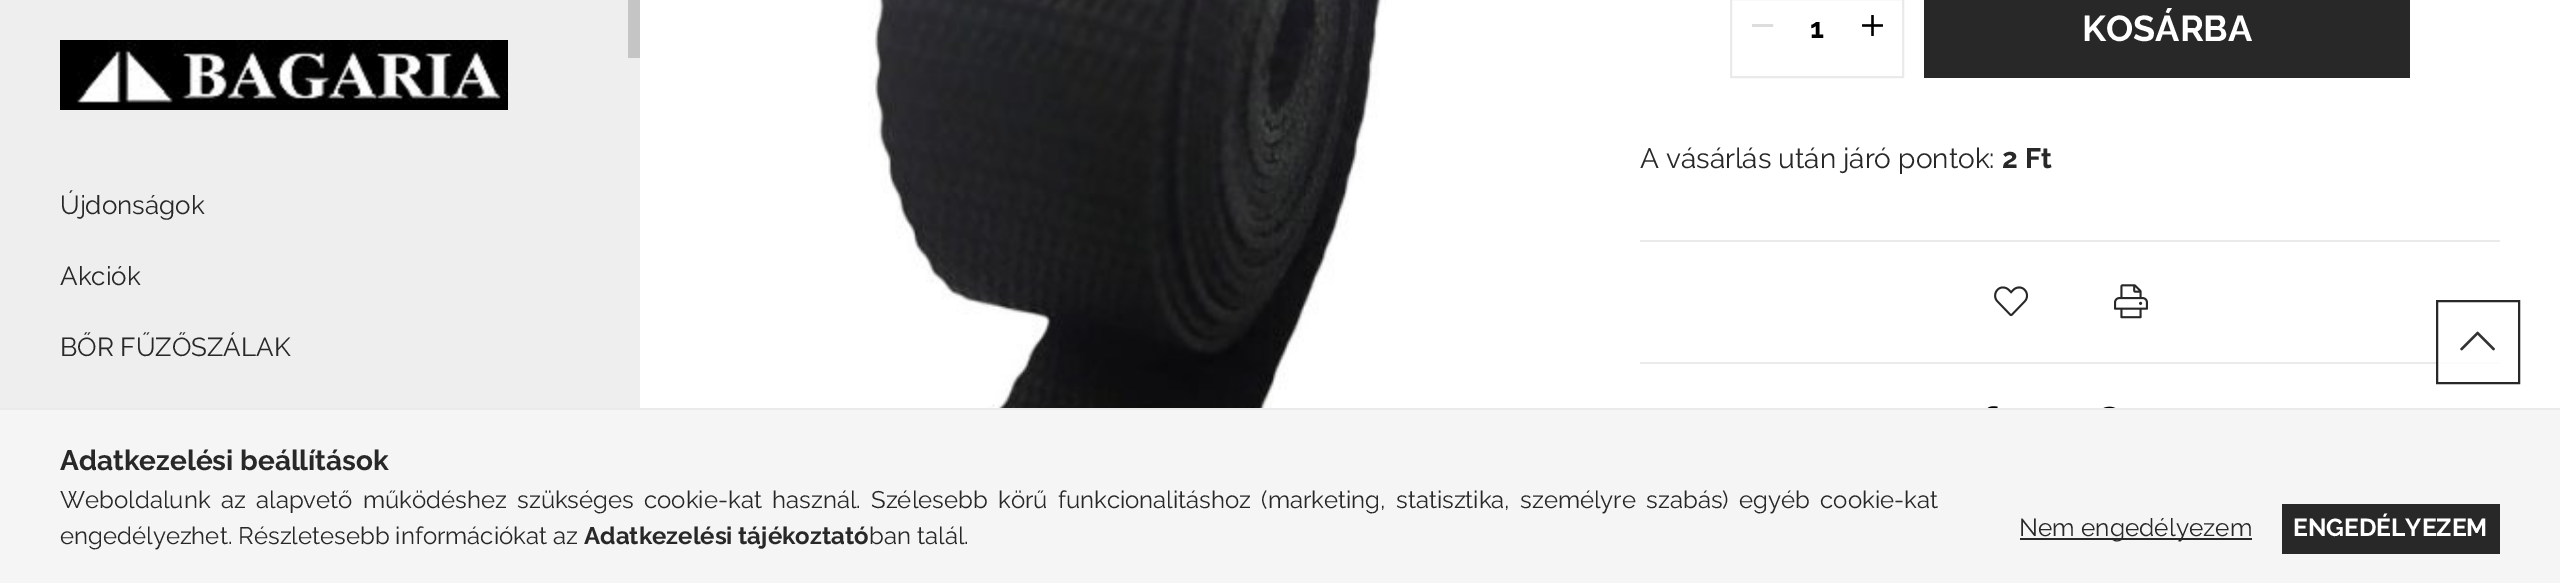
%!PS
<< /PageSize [2560 583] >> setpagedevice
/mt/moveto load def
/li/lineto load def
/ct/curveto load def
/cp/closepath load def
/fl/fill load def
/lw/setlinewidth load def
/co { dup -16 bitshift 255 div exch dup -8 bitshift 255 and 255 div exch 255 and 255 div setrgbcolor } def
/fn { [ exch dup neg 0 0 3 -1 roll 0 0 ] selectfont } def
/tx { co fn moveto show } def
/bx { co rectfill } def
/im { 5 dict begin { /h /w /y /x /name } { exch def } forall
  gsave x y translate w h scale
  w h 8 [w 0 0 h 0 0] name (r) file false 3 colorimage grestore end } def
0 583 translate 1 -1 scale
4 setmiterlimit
0 0 2560 583 16#FFFFFF bx
(media/1.raw) 868 0 518 408 im
16#EAEAEA co
2 lw
1731 -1 172 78 rectstroke
16#DDDDDD co
1772.5 24 mt 1773.5 24 1773.5 26.5 1772.5 27 ct 1752 27 li 1752 24.5 li 1752 24 li cp fl
(media/2.raw) 1862 15 21 21 im
1924 0 486 78 16#282828 bx
1640 240 860 2 16#EAEAEA bx
(media/3.raw) 1994 286 35 31 im
(media/4.raw) 2114 284 34 35 im
1640 362 796 2 16#EAEAEA bx
2436 362 64 2 16#FBFBFB bx
(media/5.raw) 1987 406 11 2 im
(media/6.raw) 2103 406 13 2 im
0 0 640 408 16#EEEEEE bx
628 0 12 58 16#C5C5C5 bx
(media/7.raw) 60 40 448 70 im
16#282828 co
2437 301 82 82 rectstroke
(media/8.raw) 2460 331 35 20 im
0 410 2560 173 16#F5F5F5 bx
0 408 2560 2 16#EAEAEA bx
2020 538 232 2 16#282828 bx
2282 504 218 50 16#282828 bx
(1) 1810 38 /Raleway-Bold 28 16#000000 tx
(KOSÁRBA) 2082 41 /Raleway-Bold 36 16#FFFFFF tx
(A vásárlás után járó pontok:) 1640 168 /Raleway-Regular 28 16#282828 tx
(2 Ft) 2002 168 /Raleway-Bold 28 16#282828 tx
(Újdonságok) 60 214 /Raleway-Regular 26 16#282828 tx
(Akciók) 60 285 /Raleway-Regular 26 16#282828 tx
(BŐR FŰZŐSZÁLAK) 60 356 /Raleway-Regular 26 16#282828 tx
(Adatkezelési beállítások) 60 470 /Raleway-Bold 28 16#282828 tx
/Raleway-Regular 24 fn
60 508 mt 4.25 0 32 (Weboldalunk az alapvető működéshez szükséges cookie-kat használ. Szélesebb körű funkcionalitáshoz \(marketing, statisztika, személyre szabás\) egyéb cookie-kat) widthshow
(engedélyezhet. Részletesebb információkat az) 60 544 /Raleway-Regular 24 16#282828 tx
(Adatkezelési tájékoztató) 584 544 /Raleway-Bold 24 16#282828 tx
(ban talál.) 869 544 /Raleway-Regular 24 16#282828 tx
(Nem engedélyezem) 2019 536 /Raleway-Regular 24.5 16#282828 tx
(ENGEDÉLYEZEM) 2293 536 /Raleway-Bold 24.5 16#FFFFFF tx
showpage
